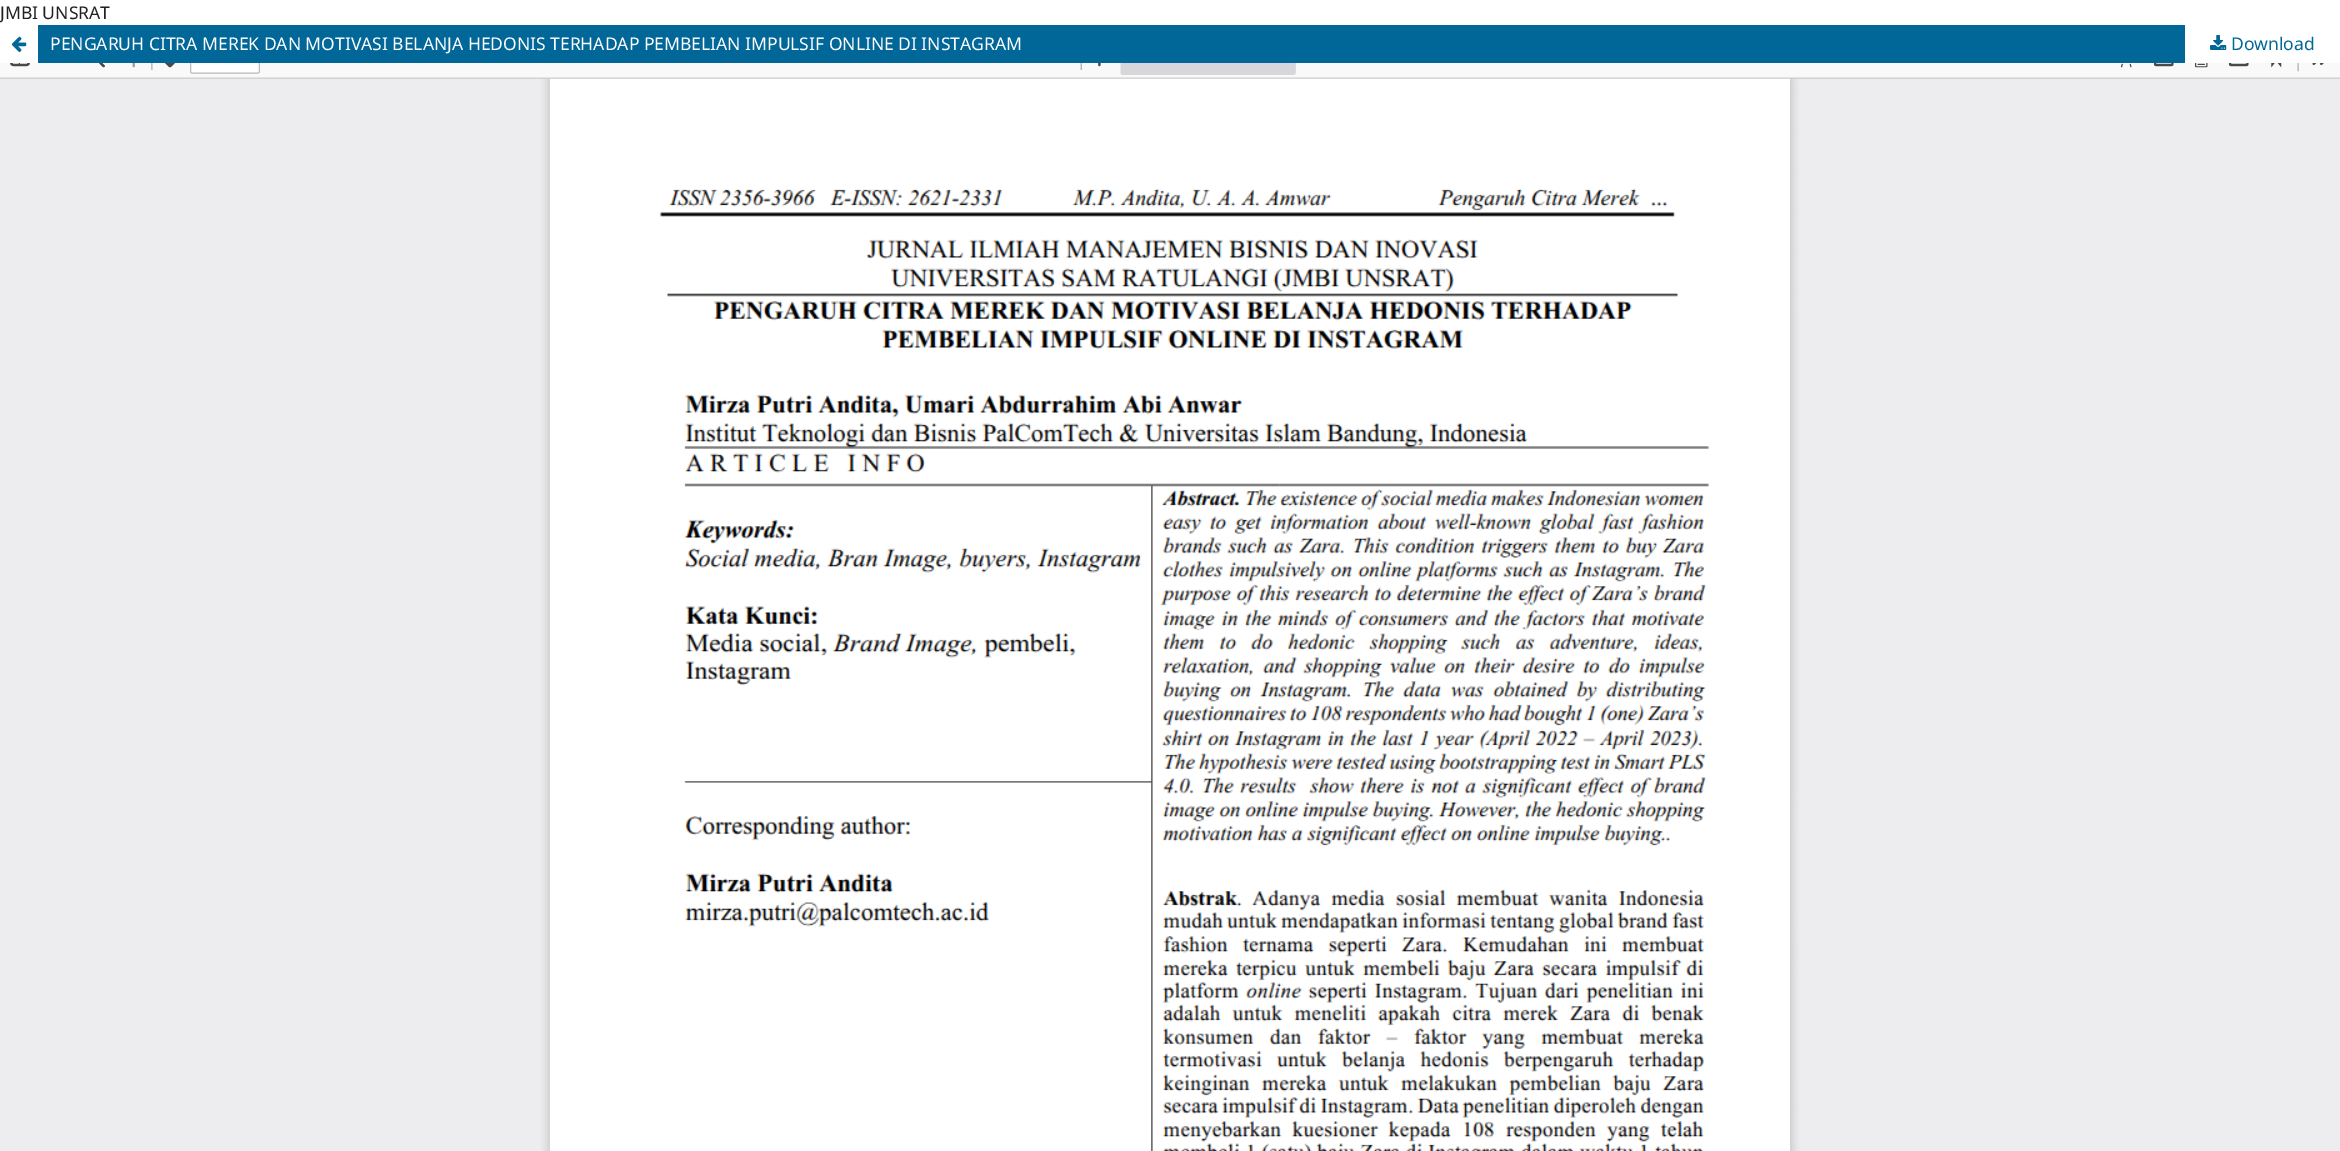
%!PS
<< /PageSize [2340 1151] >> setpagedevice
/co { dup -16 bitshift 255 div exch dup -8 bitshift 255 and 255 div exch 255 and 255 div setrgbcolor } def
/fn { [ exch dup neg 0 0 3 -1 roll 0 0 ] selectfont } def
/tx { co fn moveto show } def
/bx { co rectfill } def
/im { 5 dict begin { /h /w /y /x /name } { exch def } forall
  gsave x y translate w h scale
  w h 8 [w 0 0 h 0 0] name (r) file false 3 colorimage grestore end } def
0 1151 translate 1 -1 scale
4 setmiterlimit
0 0 2340 1151 16#FFFFFF bx
38 25 2147 38 16#006798 bx
(media/1.raw) 11 36 16 16 im
(media/2.raw) 2210 35 17 15 im
(media/3.raw) 0 63 2340 1088 im
(JMBI UNSRAT) 0 19 /NotoSans-Regular 17.5 16#212121 tx
(PENGARUH CITRA MEREK DAN MOTIVASI BELANJA HEDONIS TERHADAP PEMBELIAN IMPULSIF ONLINE DI INSTAGRAM) 50 50 /NotoSans-Regular 17.5 16#FFFFFF tx
(Download) 2231 50 /NotoSans-Regular 17.5 16#006798 tx
showpage
